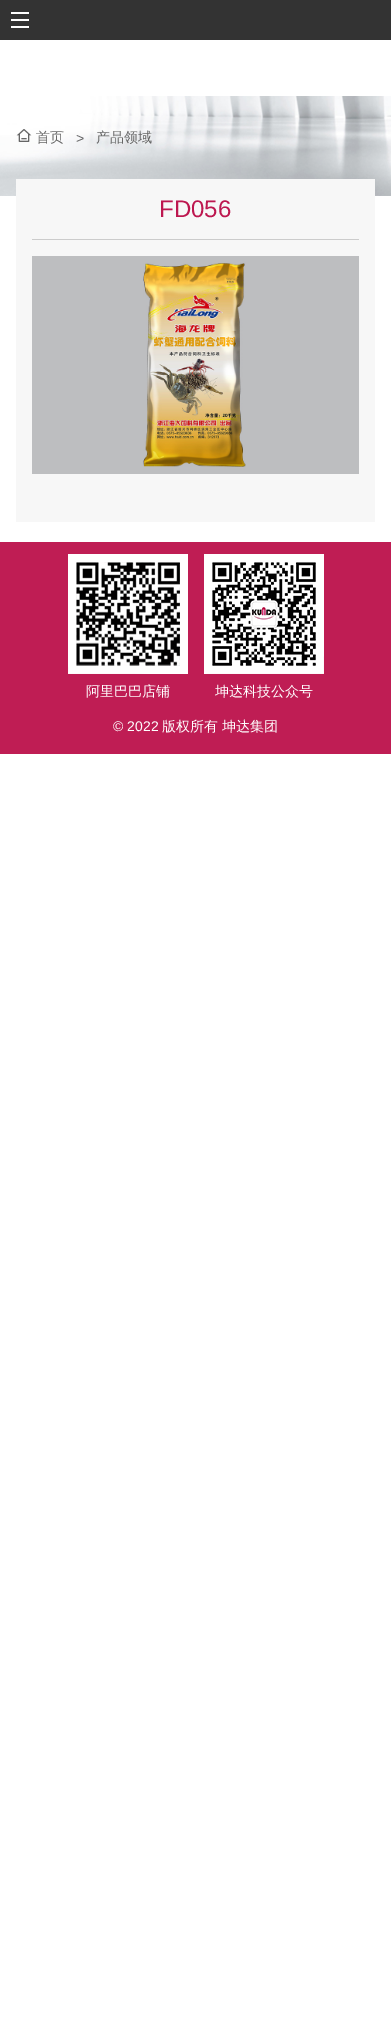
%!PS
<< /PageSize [391 2037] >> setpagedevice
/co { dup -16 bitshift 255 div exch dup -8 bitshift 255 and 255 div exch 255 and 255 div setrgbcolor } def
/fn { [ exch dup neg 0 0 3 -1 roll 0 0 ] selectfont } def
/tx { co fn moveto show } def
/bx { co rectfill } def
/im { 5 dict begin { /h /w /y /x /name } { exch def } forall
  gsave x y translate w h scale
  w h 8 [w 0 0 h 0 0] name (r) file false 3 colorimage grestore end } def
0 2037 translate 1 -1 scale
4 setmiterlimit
0 0 391 2037 16#FFFFFF bx
0 0 391 40 16#333333 bx
(media/1.raw) 11 12 18 16 im
(media/2.raw) 0 96 391 100 im
(media/3.raw) 16 129 16 13 im
16 179 359 343 16#F7F7F7 bx
32 239 327 1 16#CCCCCC bx
(media/4.raw) 32 256 327 218 im
0 542 391 212 16#BF1D54 bx
(media/5.raw) 68 554 120 120 im
(media/6.raw) 204 554 120 120 im
(首页) 36 142 /WenQuanYiZenHei-Medium 14 16#666666 tx
(>) 76 143 /LiberationSans-Regular 14 16#666666 tx
(产品领域) 96 142 /WenQuanYiZenHei-Medium 14 16#666666 tx
(FD056) 159 217 /LiberationSans-Regular 24 16#BD174F tx
(阿里巴巴店铺) 86 696 /WenQuanYiZenHei-Medium 14 16#FFFFFF tx
(坤达科技公众号) 215 696 /WenQuanYiZenHei-Medium 14 16#FFFFFF tx
(© 2022) 113 731 /LiberationSans-Regular 14 16#FFFFFF tx
(版权所有) 162 731 /WenQuanYiZenHei-Medium 14 16#FFFFFF tx
(坤达集团) 222 731 /WenQuanYiZenHei-Medium 14 16#FFFFFF tx
showpage
